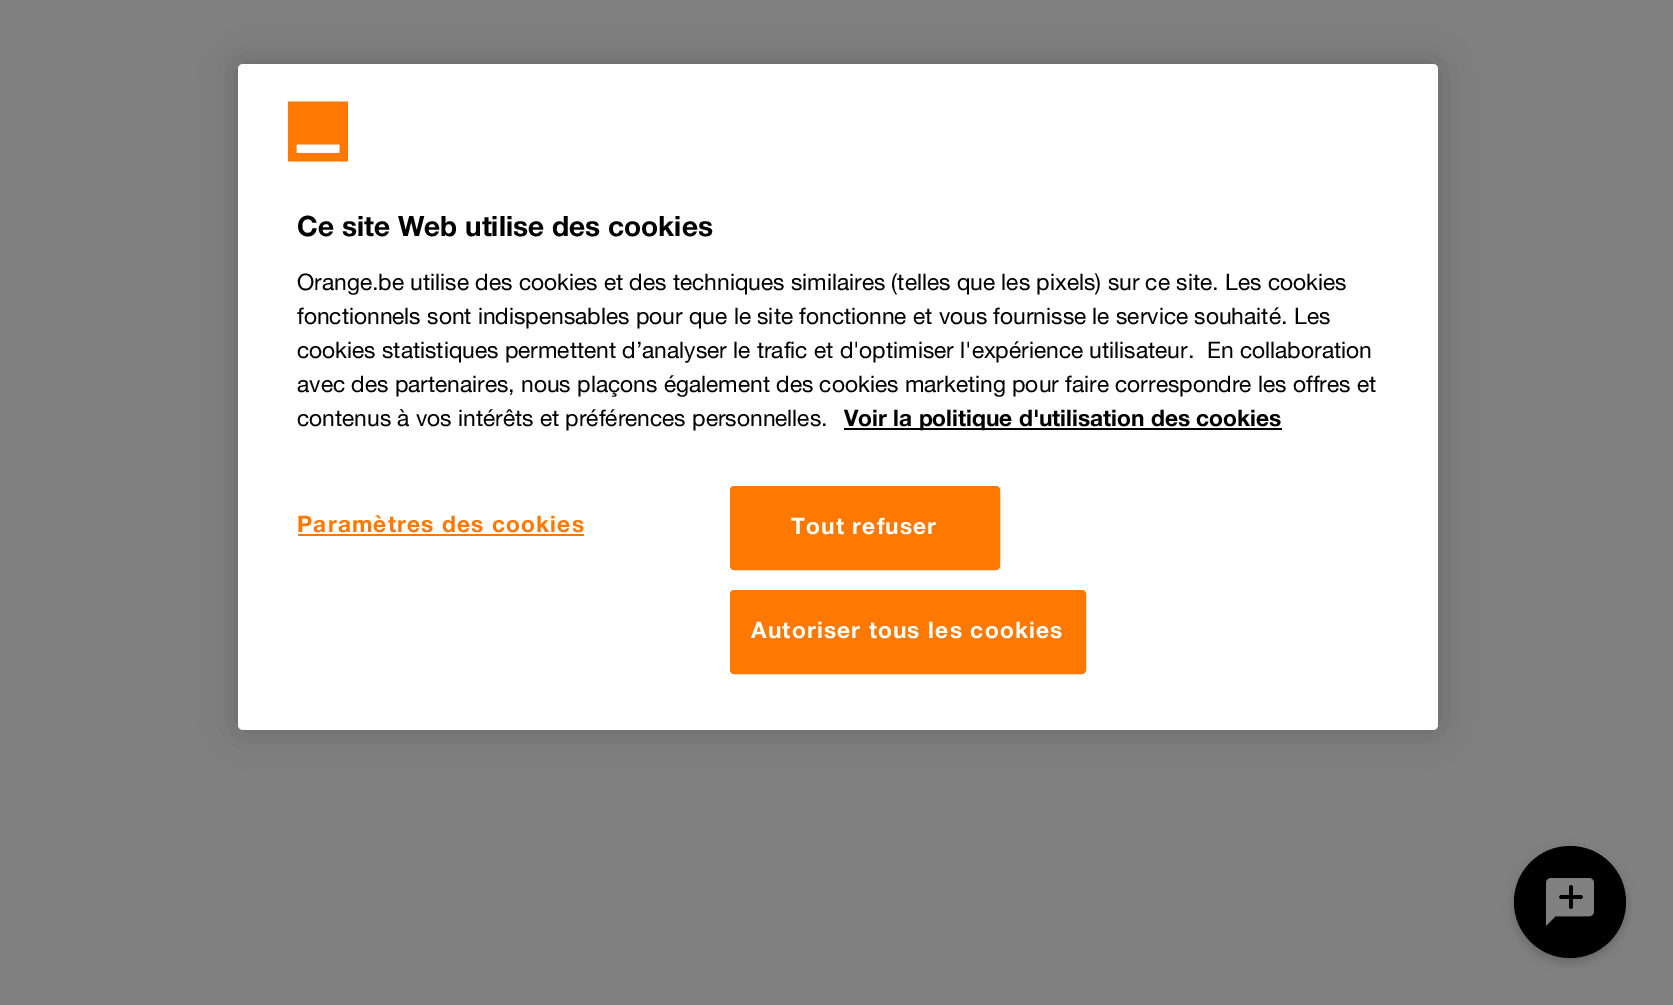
%!PS
<< /PageSize [1673 1005] /PageUsesTransparency true >> setpagedevice
/mt/moveto load def
/fl/fill load def
/st/stroke load def
/gs/gsave load def
/gr/grestore load def
/lw/setlinewidth load def
/co { dup -16 bitshift 255 div exch dup -8 bitshift 255 and 255 div exch 255 and 255 div setrgbcolor } def
/fn { [ exch dup neg 0 0 3 -1 roll 0 0 ] selectfont } def
/tx { co fn moveto show } def
/bx { co rectfill } def
/al { dup .setfillconstantalpha .setstrokeconstantalpha } def
/ci { newpath 0 360 arc closepath } def
/rr { 5 dict begin { /r /h /w /y /x } { exch def } forall
  x r add y moveto x w add y 2 copy h add r arct x w add y h add x 1 index r arct
  x y h add x y r arct x y 2 copy exch w add exch r arct closepath end } def
/sh { 12 dict begin { /a /b /q /h /w /y /x } { exch def } forall gsave /was 0 def
  9 -2 -9 { dup b mul 4 div /e exch def 1 sub .425 mul 2.718 exch exp 1 add a .99 .min exch div /now exch def
    1 1 now sub 1 was sub div sub al /was now def
    w h .min e 2 mul add 0 gt { x e sub y e sub w e 2 mul add h e 2 mul add
      q e add b .6 mul add w h .min 2 div e add .min 0 .max rr fill } if } for grestore end } def
/im { 5 dict begin { /h /w /y /x /name } { exch def } forall
  gsave x y translate w h scale
  w h 8 [w 0 0 h 0 0] name (r) file false 3 colorimage grestore end } def
0 .pushpdf14devicefilter
0 1005 translate 1 -1 scale
4 setmiterlimit
0 0 1673 1005 16#808080 bx
16#000000 co
238 64 1200 666 5 18 .2 sh
16#FFFFFF co
238 64 1200 666 5 rr fl
(media/1.raw) 287 101 61 61 im
844 428 438 2 16#000000 bx
298 534 286 2 16#FF7900 bx
731 487 268 82 3 rr gs fl gr
2 lw
st
731 591 354 82 3 rr gs fl gr
st
16#000000 co
1514 850 112 112 56 5 .2 sh
1570 902 56 ci fl
(media/2.raw) 1546 878 48 48 im
(Ce site Web utilise des cookies) 297 236 /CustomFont-Bold 28 16#000000 tx
(Orange.be utilise des cookies et des techniques similaires \(telles que les pixels\) sur ce site.) 297 290 /CustomFont-Regular 22.75 16#000000 tx
(Les cookies) 1225 290 /CustomFont-Regular 22.75 16#000000 tx
(fonctionnels sont indispensables pour que le site fonctionne et vous fournisse le service souhaité.) 297 324 /CustomFont-Regular 22.75 16#000000 tx
(Les) 1294 324 /CustomFont-Regular 22.75 16#000000 tx
(cookies statistiques permettent d’analyser le trafic et d'optimiser l'expérience utilisateur.) 297 358 /CustomFont-Regular 22.75 16#000000 tx
(En collaboration) 1207 358 /CustomFont-Regular 22.75 16#000000 tx
(avec des partenaires, nous plaçons également des cookies marketing pour faire correspondre les offres et) 297 392 /CustomFont-Regular 22.75 16#000000 tx
(contenus à vos intérêts et préférences personnelles.) 297 426 /CustomFont-Regular 22.75 16#000000 tx
(Voir la politique d'utilisation des cookies) 844 426 /CustomFont-Bold 22.75 16#000000 tx
16#FF7900 co
297 532 mt 1.15 0 (Paramètres des cookies) ashow
16#FFFFFF co
791 534 mt 1.15 0 (Tout refuser) ashow
751 638 mt 1.15 0 (Autoriser tous les cookies) ashow
.poppdf14devicefilter showpage
